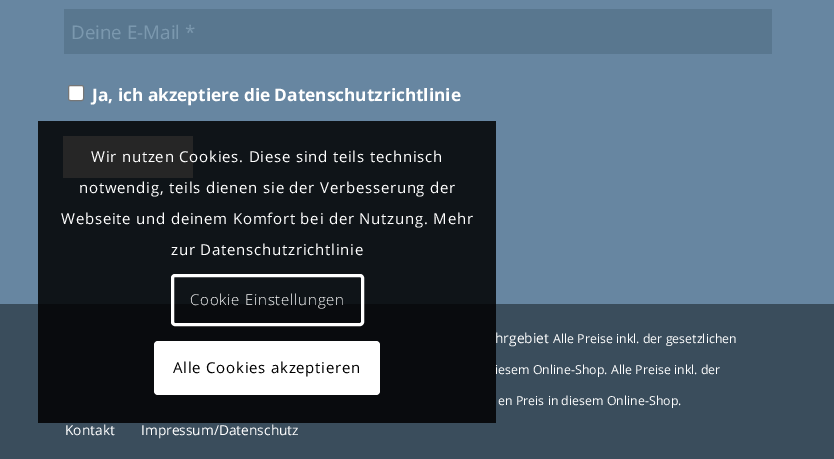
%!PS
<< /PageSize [834 459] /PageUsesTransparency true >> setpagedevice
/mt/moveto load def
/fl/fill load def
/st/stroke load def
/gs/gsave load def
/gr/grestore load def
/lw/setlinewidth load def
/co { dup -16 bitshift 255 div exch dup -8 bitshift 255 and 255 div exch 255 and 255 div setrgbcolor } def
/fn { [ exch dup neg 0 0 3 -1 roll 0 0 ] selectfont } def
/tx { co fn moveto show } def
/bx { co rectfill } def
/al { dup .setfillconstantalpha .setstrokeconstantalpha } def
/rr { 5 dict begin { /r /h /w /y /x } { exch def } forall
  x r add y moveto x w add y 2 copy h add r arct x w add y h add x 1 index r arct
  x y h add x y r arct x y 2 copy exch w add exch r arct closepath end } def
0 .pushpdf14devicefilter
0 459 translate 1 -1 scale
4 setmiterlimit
0 0 834 459 16#6786A1 bx
64 9 708 45 16#59778F bx
16#FFFFFF co
68.5 85.5 15 15 2 rr gs fl gr
16#767676 co
st
63 136 130 42 16#FFFFFF bx
0 304 834 155 16#3A4D5C bx
(Deine E-Mail *) 71 39 /OpenSans-Regular 18.75 16#7B98AE tx
(Ja, ich akzeptiere die Datenschutzrichtlinie) 92 101 /OpenSans-Bold 17.25 16#FFFFFF tx
(hrgebiet) 495 343 /OpenSans-Regular 13.75 16#FFFFFF tx
(Alle Preise inkl. der gesetzlichen) 553 343 /OpenSans-Regular 12.4 16#FFFFFF tx
(iesem Online-Shop.) 495 374 /OpenSans-Regular 12.4 16#FFFFFF tx
(Alle Preise inkl. der) 611 374 /OpenSans-Regular 12.4 16#FFFFFF tx
(en Preis in diesem Online-Shop.) 498 405 /OpenSans-Regular 12.4 16#FFFFFF tx
(Kontakt) 65 435 /OpenSans-Regular 13.75 16#FFFFFF tx
(Impressum/Datenschutz) 141 435 /OpenSans-Regular 13.75 16#FFFFFF tx
0.85 al
38 121 458 302 16#000000 bx
/OpenSans-Regular 15 fn
1 al
16#FFFFFF co
91 162 mt .75 0 (Wir nutzen Cookies. Diese sind teils technisch) ashow
79 193 mt .75 0 (notwendig, teils dienen sie der Verbesserung der) ashow
61 224 mt .75 0 (Webseite und deinem Komfort bei der Nutzung. Mehr) ashow
171 255 mt .75 0 (zur Datenschutzrichtlinie) ashow
3 lw
172.5 275.5 190 49 2.5 rr st
/OpenSans-Light 15 fn
190 305 mt .75 0 (Cookie Einstellungen) ashow
154 341 226 54 4 rr fl
/OpenSans-Regular 15 fn
16#000000 co
173 373 mt .75 0 (Alle Cookies akzeptieren) ashow
.poppdf14devicefilter showpage
